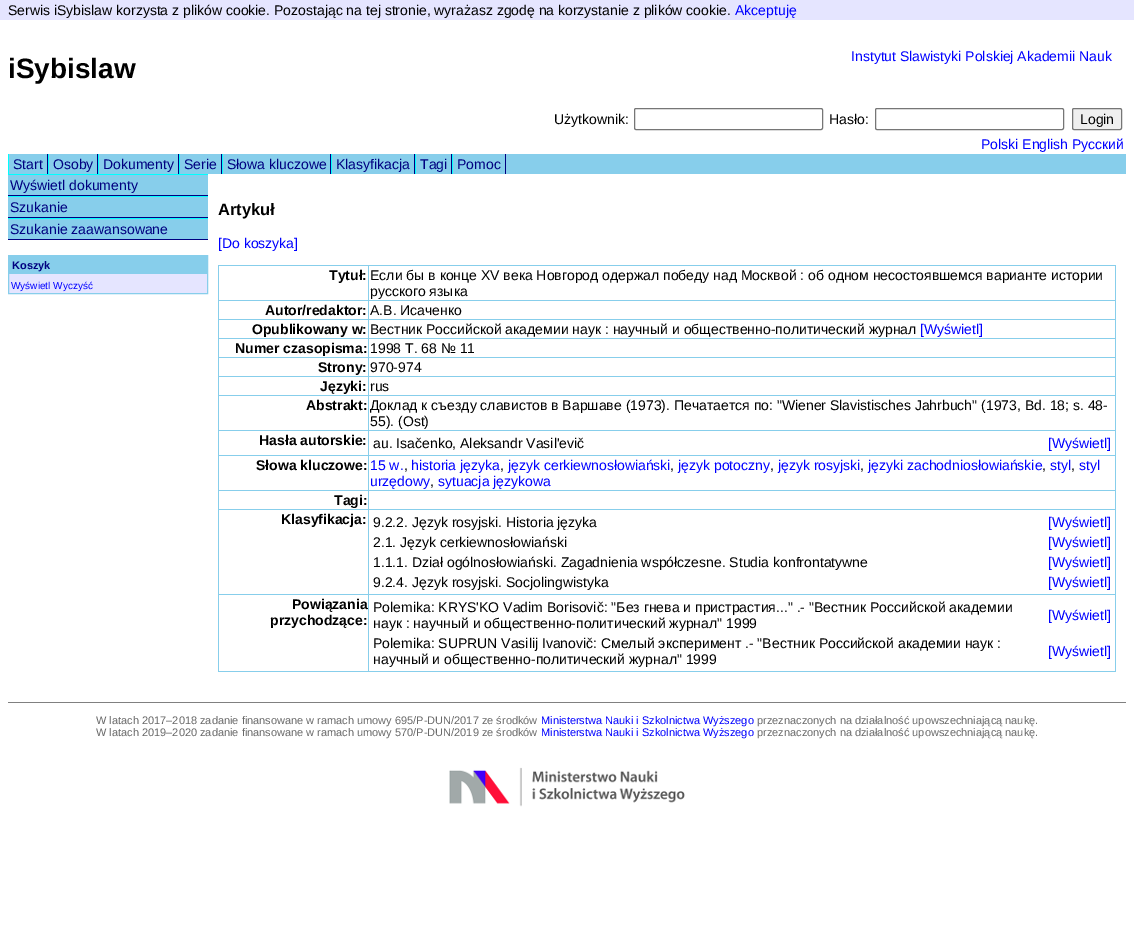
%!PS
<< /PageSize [1134 952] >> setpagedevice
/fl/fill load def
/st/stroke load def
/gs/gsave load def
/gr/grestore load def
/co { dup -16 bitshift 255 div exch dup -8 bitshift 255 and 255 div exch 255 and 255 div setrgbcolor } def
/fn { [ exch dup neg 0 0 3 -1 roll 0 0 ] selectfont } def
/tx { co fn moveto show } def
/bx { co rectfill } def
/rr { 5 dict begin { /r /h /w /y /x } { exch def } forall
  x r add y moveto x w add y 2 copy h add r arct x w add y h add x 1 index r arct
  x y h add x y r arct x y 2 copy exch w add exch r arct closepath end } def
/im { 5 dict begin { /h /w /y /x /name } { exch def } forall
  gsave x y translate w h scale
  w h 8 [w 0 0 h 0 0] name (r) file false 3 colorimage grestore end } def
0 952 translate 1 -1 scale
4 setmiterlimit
0 0 1134 952 16#FFFFFF bx
0 0 1134 20 16#E5E5FF bx
16#767676 co
634.5 108.5 188 21 1.5 rr st
875.5 108.5 188 21 1.5 rr st
16#EFEFEF co
1072.5 108.5 49 21 1.5 rr gs fl gr
16#767676 co
st
9 154 1117 20 16#87CEEB bx
47 154 1 20 16#000080 bx
8 154 1 20 16#00FFFF bx
97 154 1 20 16#000080 bx
48 154 1 20 16#00FFFF bx
178 154 1 20 16#000080 bx
98 154 1 20 16#00FFFF bx
221 154 1 20 16#000080 bx
179 154 1 20 16#00FFFF bx
330 154 1 20 16#000080 bx
222 154 1 20 16#00FFFF bx
414 154 1 20 16#000080 bx
331 154 1 20 16#00FFFF bx
451 154 1 20 16#000080 bx
415 154 1 20 16#00FFFF bx
505 154 1 20 16#000080 bx
452 154 1 20 16#00FFFF bx
8 175 200 64 16#87CEEB bx
8 174 200 1 16#00FFFF bx
8 195 200 1 16#000080 bx
8 196 200 1 16#00FFFF bx
8 217 200 1 16#000080 bx
8 218 200 1 16#00FFFF bx
8 239 200 1 16#000080 bx
9 274 198 19 16#E5E5FF bx
16#87CEEB co
8.5 255.5 199 38 rectstroke
9 256 198 18 16#87CEEB bx
368 265 748 1 16#87CEEB bx
368 300 748 1 16#87CEEB bx
368 319 748 1 16#87CEEB bx
368 338 748 1 16#87CEEB bx
368 357 748 1 16#87CEEB bx
368 376 748 1 16#87CEEB bx
368 395 748 1 16#87CEEB bx
368 430 748 1 16#87CEEB bx
368 455 748 1 16#87CEEB bx
368 490 748 1 16#87CEEB bx
368 509 748 1 16#87CEEB bx
368 594 748 1 16#87CEEB bx
1115 594 1 78 16#87CEEB bx
368 671 748 1 16#87CEEB bx
368 594 1 78 16#87CEEB bx
218 594 151 1 16#87CEEB bx
368 509 1 86 16#87CEEB bx
218 509 151 1 16#87CEEB bx
368 490 1 20 16#87CEEB bx
218 490 151 1 16#87CEEB bx
368 455 1 36 16#87CEEB bx
218 455 151 1 16#87CEEB bx
368 430 1 26 16#87CEEB bx
218 430 151 1 16#87CEEB bx
368 395 1 36 16#87CEEB bx
218 395 151 1 16#87CEEB bx
368 376 1 20 16#87CEEB bx
218 376 151 1 16#87CEEB bx
368 357 1 20 16#87CEEB bx
218 357 151 1 16#87CEEB bx
368 338 1 20 16#87CEEB bx
218 338 151 1 16#87CEEB bx
368 319 1 20 16#87CEEB bx
218 319 151 1 16#87CEEB bx
368 300 1 20 16#87CEEB bx
218 300 151 1 16#87CEEB bx
368 265 1 36 16#87CEEB bx
218 265 151 1 16#87CEEB bx
218 671 151 1 16#87CEEB bx
218 594 1 78 16#87CEEB bx
218 509 1 86 16#87CEEB bx
218 490 1 20 16#87CEEB bx
218 455 1 36 16#87CEEB bx
218 430 1 26 16#87CEEB bx
218 395 1 36 16#87CEEB bx
218 376 1 20 16#87CEEB bx
218 357 1 20 16#87CEEB bx
218 338 1 20 16#87CEEB bx
218 319 1 20 16#87CEEB bx
218 300 1 20 16#87CEEB bx
218 265 1 36 16#87CEEB bx
1115 509 1 86 16#87CEEB bx
1115 490 1 20 16#87CEEB bx
1115 455 1 36 16#87CEEB bx
1115 430 1 26 16#87CEEB bx
1115 395 1 36 16#87CEEB bx
1115 376 1 20 16#87CEEB bx
1115 357 1 20 16#87CEEB bx
1115 338 1 20 16#87CEEB bx
1115 319 1 20 16#87CEEB bx
1115 300 1 20 16#87CEEB bx
1115 265 1 36 16#87CEEB bx
8 702 1118 1 16#808080 bx
(Serwis iSybislaw korzysta z plików cookie. Pozostając na tej stronie, wyrażasz zgodę na korzystanie z plików cookie.) 8 15 /LiberationSans-Regular 14 16#000000 tx
(Akceptuję) 735 15 /LiberationSans-Regular 14 16#0000FF tx
(iSybislaw) 8 78 /LiberationSans-Bold 28 16#000000 tx
(Instytut Slawistyki Polskiej Akademii Nauk) 851 61 /LiberationSans-Regular 14 16#0000FF tx
(Użytkownik:) 554 124 /LiberationSans-Regular 14 16#000000 tx
(Hasło:) 829 124 /LiberationSans-Regular 14 16#000000 tx
(Login) 1080 124 /LiberationSans-Regular 14 16#000000 tx
(Polski English Русский) 981 149 /LiberationSans-Regular 14 16#0000FF tx
(Start) 13 169 /LiberationSans-Regular 14 16#000080 tx
(Osoby) 53 169 /LiberationSans-Regular 14 16#000080 tx
(Dokumenty) 103 169 /LiberationSans-Regular 14 16#000080 tx
(Serie) 184 169 /LiberationSans-Regular 14 16#000080 tx
(Słowa kluczowe) 227 169 /LiberationSans-Regular 14 16#000080 tx
(Klasyfikacja) 336 169 /LiberationSans-Regular 14 16#000080 tx
(Tagi) 420 169 /LiberationSans-Regular 14 16#000080 tx
(Pomoc) 457 169 /LiberationSans-Regular 14 16#000080 tx
(Wyświetl dokumenty) 10 190 /LiberationSans-Regular 14 16#000080 tx
(Szukanie) 10 212 /LiberationSans-Regular 14 16#000080 tx
(Szukanie zaawansowane) 10 234 /LiberationSans-Regular 14 16#000080 tx
(Koszyk) 12 269 /LiberationSans-Bold 11 16#000080 tx
(Wyświetl Wyczyść) 11 289 /LiberationSans-Regular 10 16#0000FF tx
(Artykuł) 218 215 /LiberationSans-Bold 16.5 16#000000 tx
([Do koszyka]) 218 248 /LiberationSans-Regular 14 16#0000FF tx
(Tytuł:) 329 280 /LiberationSans-Bold 14 16#000000 tx
(Если бы в конце XV века Новгород одержал победу над Москвой : об одном несостоявшемся варианте истории) 370 280 /LiberationSans-Regular 14 16#000000 tx
(русского языка) 370 296 /LiberationSans-Regular 14 16#000000 tx
(Autor/redaktor:) 265 315 /LiberationSans-Bold 14 16#000000 tx
(А.В. Исаченко) 370 315 /LiberationSans-Regular 14 16#000000 tx
(Opublikowany w:) 252 334 /LiberationSans-Bold 14 16#000000 tx
(Вестник Российской академии наук : научный и общественно-политический журнал) 370 334 /LiberationSans-Regular 14 16#000000 tx
([Wyświetl]) 920 334 /LiberationSans-Regular 14 16#0000FF tx
(Numer czasopisma:) 235 353 /LiberationSans-Bold 14 16#000000 tx
(1998 T. 68 № 11) 370 353 /LiberationSans-Regular 14 16#000000 tx
(Strony:) 318 372 /LiberationSans-Bold 14 16#000000 tx
(970-974) 370 372 /LiberationSans-Regular 14 16#000000 tx
(Języki:) 320 391 /LiberationSans-Bold 14 16#000000 tx
(rus) 370 391 /LiberationSans-Regular 14 16#000000 tx
(Abstrakt:) 306 410 /LiberationSans-Bold 14 16#000000 tx
(Доклад к съезду славистов в Варшаве \(1973\). Печатается по: "Wiener Slavistisches Jahrbuch" \(1973, Bd. 18; s. 48-) 370 410 /LiberationSans-Regular 14 16#000000 tx
(55\). \(Ost\)) 370 426 /LiberationSans-Regular 14 16#000000 tx
(Hasła autorskie:) 259 445 /LiberationSans-Bold 14 16#000000 tx
(au. Isačenko, Aleksandr Vasil'evič) 373 448 /LiberationSans-Regular 14 16#000000 tx
([Wyświetl]) 1048 448 /LiberationSans-Regular 14 16#0000FF tx
(Słowa kluczowe:) 256 470 /LiberationSans-Bold 14 16#000000 tx
(15 w.) 370 470 /LiberationSans-Regular 14 16#0000FF tx
(,) 404 470 /LiberationSans-Regular 14 16#000000 tx
(historia języka) 411 470 /LiberationSans-Regular 14 16#0000FF tx
(,) 500 470 /LiberationSans-Regular 14 16#000000 tx
(język cerkiewnosłowiański) 508 470 /LiberationSans-Regular 14 16#0000FF tx
(,) 670 470 /LiberationSans-Regular 14 16#000000 tx
(język potoczny) 678 470 /LiberationSans-Regular 14 16#0000FF tx
(,) 770 470 /LiberationSans-Regular 14 16#000000 tx
(język rosyjski) 778 470 /LiberationSans-Regular 14 16#0000FF tx
(,) 860 470 /LiberationSans-Regular 14 16#000000 tx
(języki zachodniosłowiańskie) 868 470 /LiberationSans-Regular 14 16#0000FF tx
(,) 1042 470 /LiberationSans-Regular 14 16#000000 tx
(styl) 1050 470 /LiberationSans-Regular 14 16#0000FF tx
(,) 1071 470 /LiberationSans-Regular 14 16#000000 tx
(styl) 1079 470 /LiberationSans-Regular 14 16#0000FF tx
(urzędowy) 370 486 /LiberationSans-Regular 14 16#0000FF tx
(,) 430 486 /LiberationSans-Regular 14 16#000000 tx
(sytuacja językowa) 438 486 /LiberationSans-Regular 14 16#0000FF tx
(Tagi:) 334 505 /LiberationSans-Bold 14 16#000000 tx
(Klasyfikacja:) 281 524 /LiberationSans-Bold 14 16#000000 tx
(9.2.2. Język rosyjski. Historia języka) 373 527 /LiberationSans-Regular 14 16#000000 tx
([Wyświetl]) 1048 527 /LiberationSans-Regular 14 16#0000FF tx
(2.1. Język cerkiewnosłowiański) 373 547 /LiberationSans-Regular 14 16#000000 tx
([Wyświetl]) 1048 547 /LiberationSans-Regular 14 16#0000FF tx
(1.1.1. Dział ogólnosłowiański. Zagadnienia współczesne. Studia konfrontatywne) 373 567 /LiberationSans-Regular 14 16#000000 tx
([Wyświetl]) 1048 567 /LiberationSans-Regular 14 16#0000FF tx
(9.2.4. Język rosyjski. Socjolingwistyka) 373 587 /LiberationSans-Regular 14 16#000000 tx
([Wyświetl]) 1048 587 /LiberationSans-Regular 14 16#0000FF tx
(Powiązania) 292 609 /LiberationSans-Bold 14 16#000000 tx
(przychodzące:) 270 625 /LiberationSans-Bold 14 16#000000 tx
(Polemika: KRYS'KO Vadim Borisovič: "Без гнева и пристрастия..." .- "Вестник Российской академии) 373 612 /LiberationSans-Regular 14 16#000000 tx
(наук : научный и общественно-политический журнал" 1999) 373 628 /LiberationSans-Regular 14 16#000000 tx
([Wyświetl]) 1048 620 /LiberationSans-Regular 14 16#0000FF tx
(Polemika: SUPRUN Vasilij Ivanovič: Смелый эксперимент .- "Вестник Российской академии наук :) 373 648 /LiberationSans-Regular 14 16#000000 tx
(научный и общественно-политический журнал" 1999) 373 664 /LiberationSans-Regular 14 16#000000 tx
([Wyświetl]) 1048 656 /LiberationSans-Regular 14 16#0000FF tx
(W latach 2017–2018 zadanie finansowane w ramach umowy 695/P-DUN/2017 ze środków) 96 724 /LiberationSans-Regular 11 16#696969 tx
(Ministerstwa Nauki i Szkolnictwa Wyższego) 541 724 /LiberationSans-Regular 11 16#0000FF tx
(przeznaczonych na działalność upowszechniającą naukę.) 757 724 /LiberationSans-Regular 11 16#696969 tx
(W latach 2019–2020 zadanie finansowane w ramach umowy 570/P-DUN/2019 ze środków) 96 736 /LiberationSans-Regular 11 16#696969 tx
(Ministerstwa Nauki i Szkolnictwa Wyższego) 541 736 /LiberationSans-Regular 11 16#0000FF tx
(przeznaczonych na działalność upowszechniającą naukę.) 757 736 /LiberationSans-Regular 11 16#696969 tx
(media/1.raw) 449 738 266 69 im
showpage
